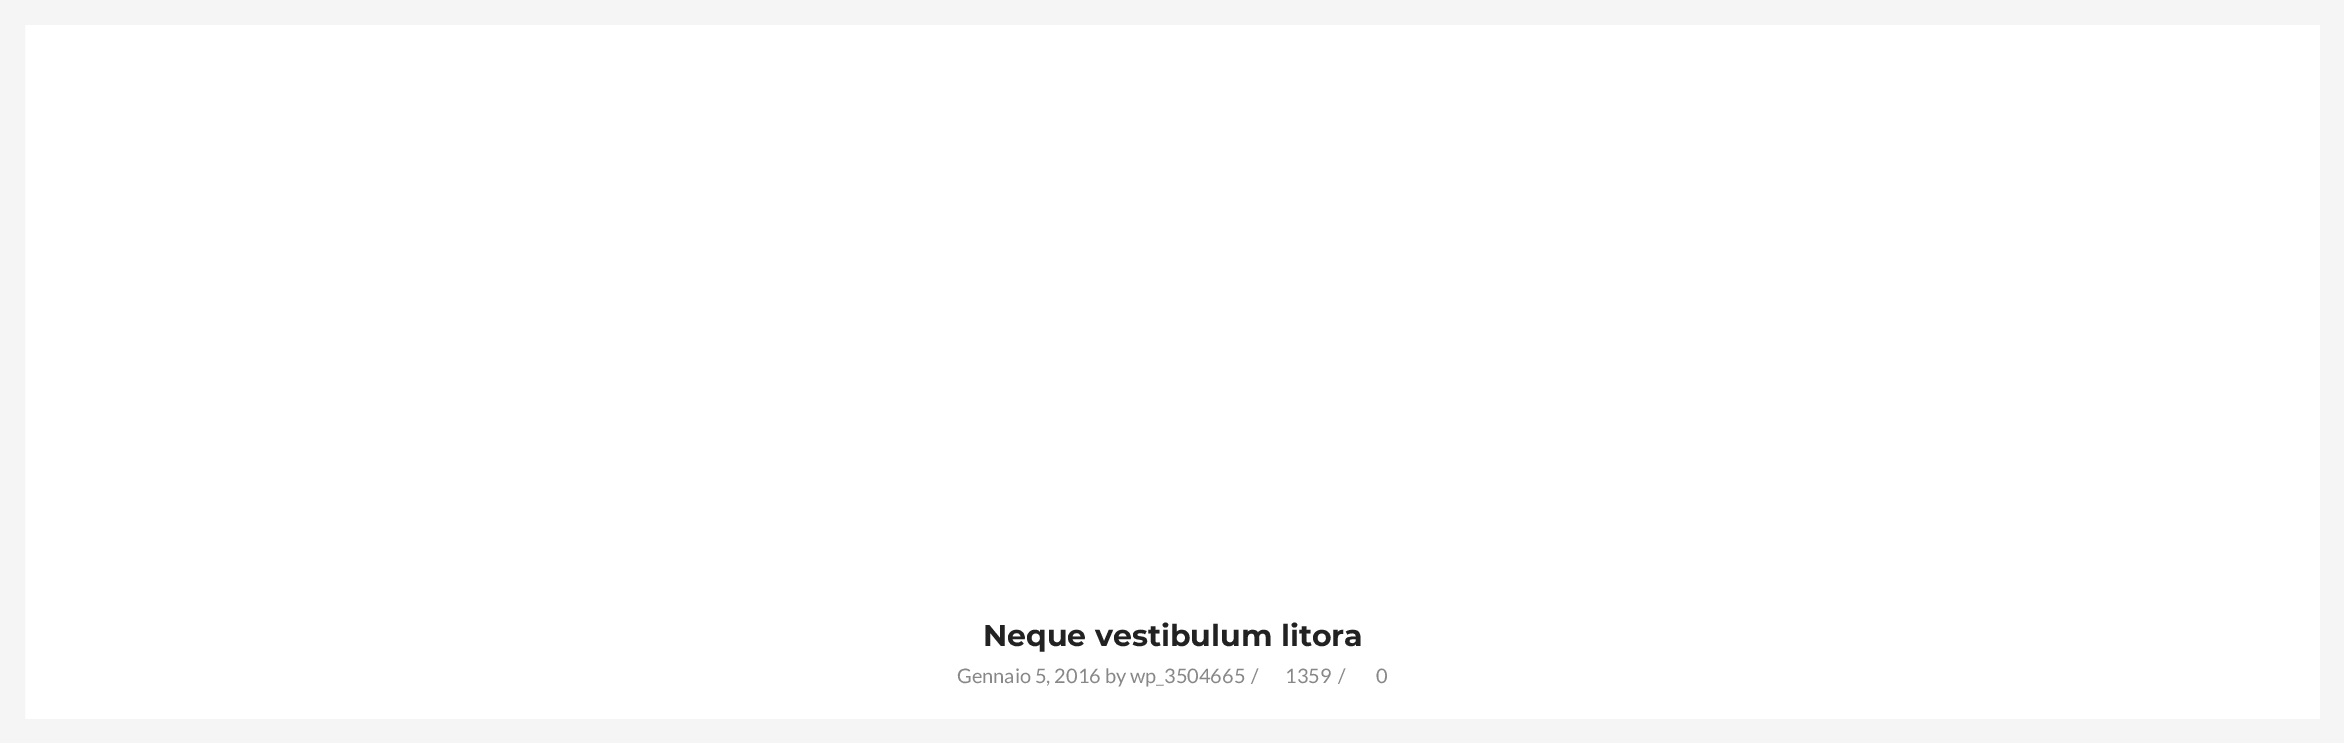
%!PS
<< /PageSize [2344 743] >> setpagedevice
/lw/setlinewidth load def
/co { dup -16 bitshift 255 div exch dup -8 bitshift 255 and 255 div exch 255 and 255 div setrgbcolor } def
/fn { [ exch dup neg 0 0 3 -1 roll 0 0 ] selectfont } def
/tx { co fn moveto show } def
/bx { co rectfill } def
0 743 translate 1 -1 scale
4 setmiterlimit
0 0 2344 743 16#FFFFFF bx
16#F5F5F5 co
25 lw
12.5 -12.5 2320 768 rectstroke
25 0 2295 25 16#F5F5F5 bx
25 719 2295 24 16#F5F5F5 bx
(Neque vestibulum litora) 983 646 /Montserrat-Bold 30 16#222222 tx
(Gennaio 5, 2016 by wp_3504665) 957 683 /Lato-Regular 20 16#888888 tx
(/) 1251 683 /Lato-Regular 20 16#888888 tx
(1359) 1285 683 /Lato-Regular 20 16#888888 tx
(/) 1338 683 /Lato-Regular 20 16#888888 tx
(0) 1376 683 /Lato-Regular 20 16#888888 tx
showpage
